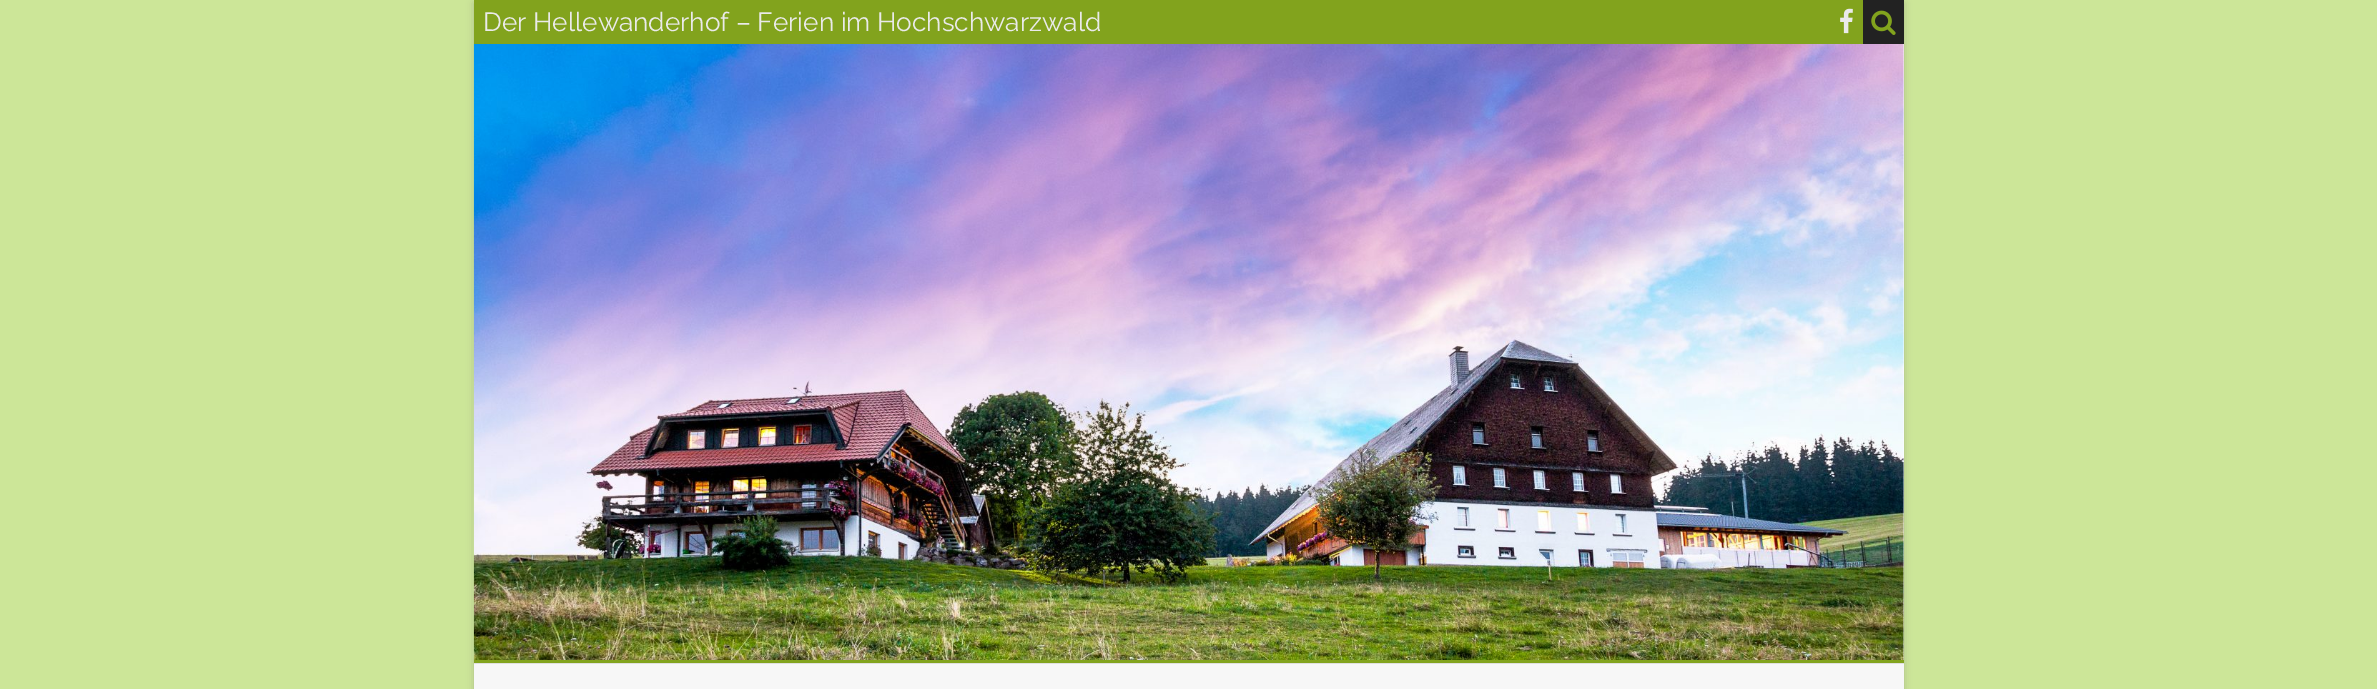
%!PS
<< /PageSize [2377 689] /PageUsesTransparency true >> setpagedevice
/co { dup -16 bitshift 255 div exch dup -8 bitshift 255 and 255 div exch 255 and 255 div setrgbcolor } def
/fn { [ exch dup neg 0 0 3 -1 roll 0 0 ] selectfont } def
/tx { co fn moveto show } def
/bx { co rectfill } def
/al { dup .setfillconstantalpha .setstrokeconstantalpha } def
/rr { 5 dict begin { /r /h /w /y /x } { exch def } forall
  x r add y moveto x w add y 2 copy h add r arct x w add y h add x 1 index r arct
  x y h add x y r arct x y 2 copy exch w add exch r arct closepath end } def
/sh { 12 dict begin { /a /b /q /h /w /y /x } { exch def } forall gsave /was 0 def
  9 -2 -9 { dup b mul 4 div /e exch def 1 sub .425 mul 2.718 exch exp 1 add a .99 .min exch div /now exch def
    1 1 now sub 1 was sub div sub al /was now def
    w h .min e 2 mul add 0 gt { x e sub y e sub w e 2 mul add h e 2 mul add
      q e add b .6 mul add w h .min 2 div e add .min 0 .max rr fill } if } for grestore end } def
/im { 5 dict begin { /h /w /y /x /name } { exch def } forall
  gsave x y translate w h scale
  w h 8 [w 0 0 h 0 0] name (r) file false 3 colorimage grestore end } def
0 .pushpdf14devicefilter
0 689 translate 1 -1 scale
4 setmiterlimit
0 0 2377 689 16#CCE698 bx
16#646464 co
474 3 1430 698 0 4 .3 sh
1903 44 1 616 16#FFFFFF bx
474 0 1389 44 16#82A31D bx
(media/1.raw) 1840 8 13 26 im
1863 0 41 44 16#222222 bx
(media/2.raw) 1871 10 25 25 im
(media/3.raw) 473 44 1431 616 im
474 664 1430 25 16#F7F7F7 bx
474 660 1430 3 16#82A31D bx
474 663 1430 1 16#E0E0E0 bx
(Der Hellewanderhof – Ferien im Hochschwarzwald) 483 31 /Raleway-Regular 26.25 16#EAEAEA tx
.poppdf14devicefilter showpage
